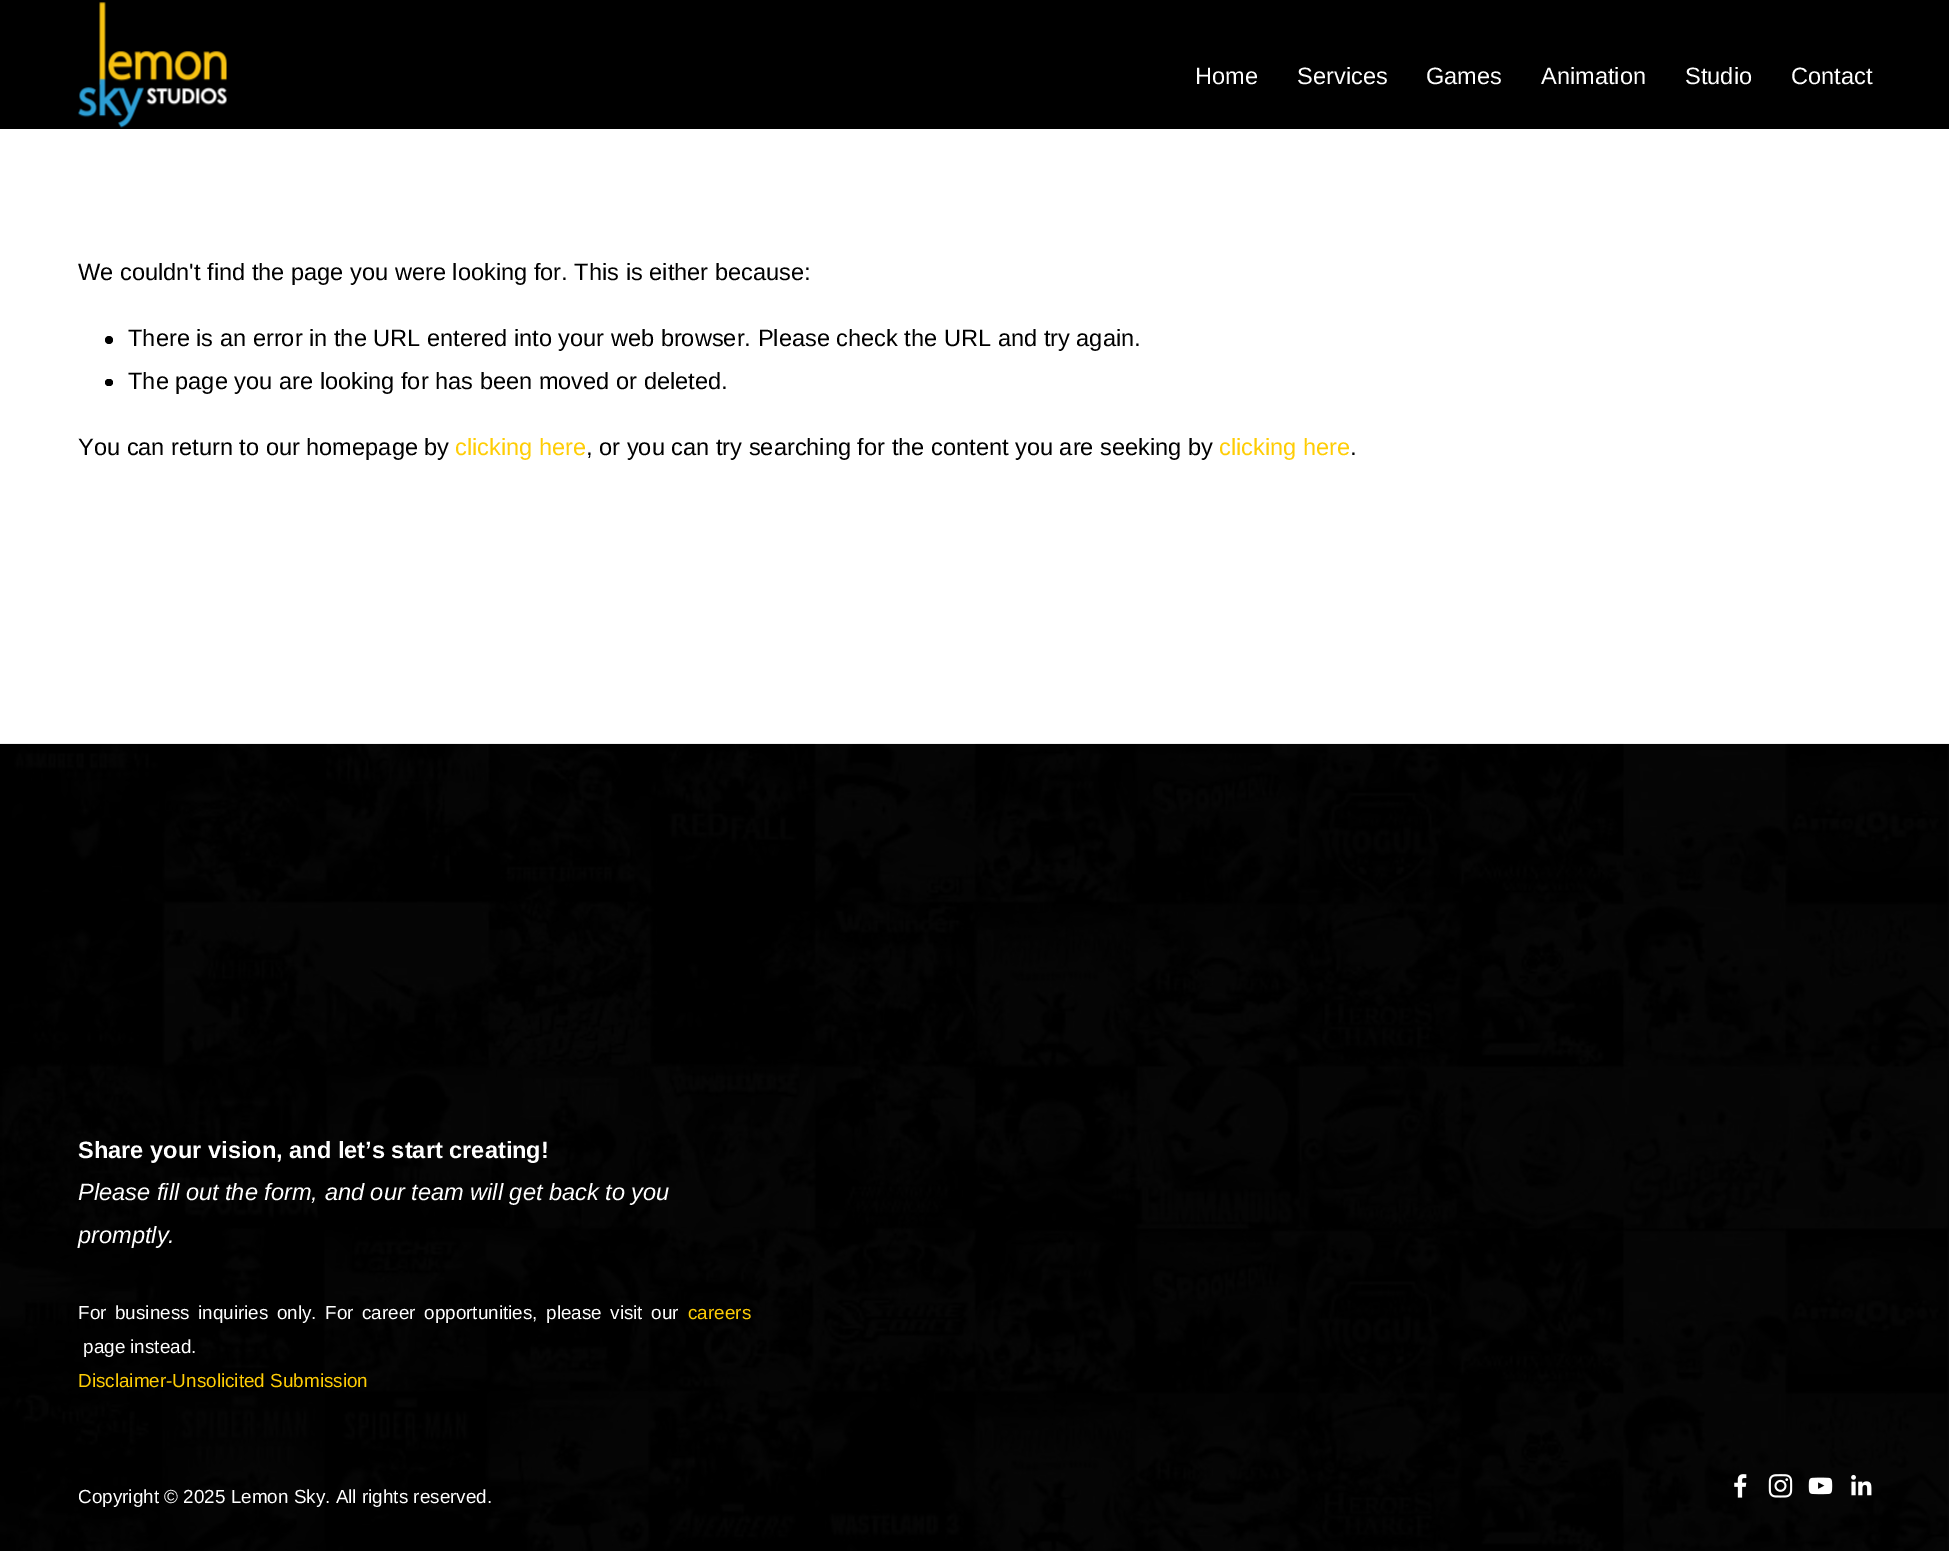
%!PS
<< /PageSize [1949 1551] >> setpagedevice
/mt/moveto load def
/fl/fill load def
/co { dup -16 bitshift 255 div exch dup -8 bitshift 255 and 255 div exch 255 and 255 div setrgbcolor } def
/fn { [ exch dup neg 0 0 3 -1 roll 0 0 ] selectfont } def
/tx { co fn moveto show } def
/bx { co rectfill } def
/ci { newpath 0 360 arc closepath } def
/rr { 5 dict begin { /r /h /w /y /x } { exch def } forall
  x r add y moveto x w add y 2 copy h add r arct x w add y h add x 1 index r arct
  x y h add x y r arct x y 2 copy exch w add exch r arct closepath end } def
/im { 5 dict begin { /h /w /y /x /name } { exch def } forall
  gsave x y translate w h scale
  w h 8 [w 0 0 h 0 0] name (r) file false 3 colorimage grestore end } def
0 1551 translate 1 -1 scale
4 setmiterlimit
0 0 1949 1551 16#FFFFFF bx
0 0 1949 129 16#000000 bx
(media/1.raw) 78 2 149 126 im
109 340 4 ci fl
105 379 8 7 3.5 rr fl
(media/2.raw) 0 743 1949 808 im
(media/3.raw) 1734 1474 13 24 im
(media/4.raw) 1768 1474 25 24 im
(media/5.raw) 1808 1477 25 18 im
(media/6.raw) 1851 1474 21 22 im
(Home) 1195 84 /LiberationSans-Regular 23.6 16#FFFFFF tx
(Services) 1297 84 /LiberationSans-Regular 23.6 16#FFFFFF tx
(Games) 1426 84 /LiberationSans-Regular 23.6 16#FFFFFF tx
(Animation) 1541 84 /LiberationSans-Regular 23.6 16#FFFFFF tx
(Studio) 1685 84 /LiberationSans-Regular 23.6 16#FFFFFF tx
(Contact) 1791 84 /LiberationSans-Regular 23.6 16#FFFFFF tx
(We couldn't find the page you were looking for. This is either because:) 78 280 /LiberationSans-Regular 23.6 16#000000 tx
(There is an error in the URL entered into your web browser. Please check the URL and try again.) 128 346 /LiberationSans-Regular 23.6 16#000000 tx
(The page you are looking for has been moved or deleted.) 128 389 /LiberationSans-Regular 23.6 16#000000 tx
(You can return to our homepage by) 78 455 /LiberationSans-Regular 23.6 16#000000 tx
(clicking here) 455 455 /LiberationSans-Regular 23.6 16#FFCD05 tx
(, or you can try searching for the content you are seeking by) 586 455 /LiberationSans-Regular 23.6 16#000000 tx
(clicking here) 1219 455 /LiberationSans-Regular 23.6 16#FFCD05 tx
(.) 1350 455 /LiberationSans-Regular 23.6 16#000000 tx
(Share your vision, and let’s start creating!) 78 1158 /LiberationSans-Bold 23.6 16#FFFFFF tx
(Please fill out the form, and our team will get back to you) 78 1200 /LiberationSans-Italic 23.6 16#FFFFFF tx
(promptly.) 78 1243 /LiberationSans-Italic 23.6 16#FFFFFF tx
/LiberationSans-Regular 18.9 fn
78 1319 mt 3.25 0 32 (For business inquiries only. For career opportunities, please visit our) widthshow
(careers) 688 1319 /LiberationSans-Regular 18.9 16#FFCD05 tx
(page instead.) 83 1353 /LiberationSans-Regular 18.9 16#FFFFFF tx
(Disclaimer-Unsolicited Submission) 78 1387 /LiberationSans-Regular 18.9 16#FFCD05 tx
(Copyright © 2025 Lemon Sky. All rights reserved.) 78 1503 /LiberationSans-Regular 18.9 16#FFFFFF tx
showpage
